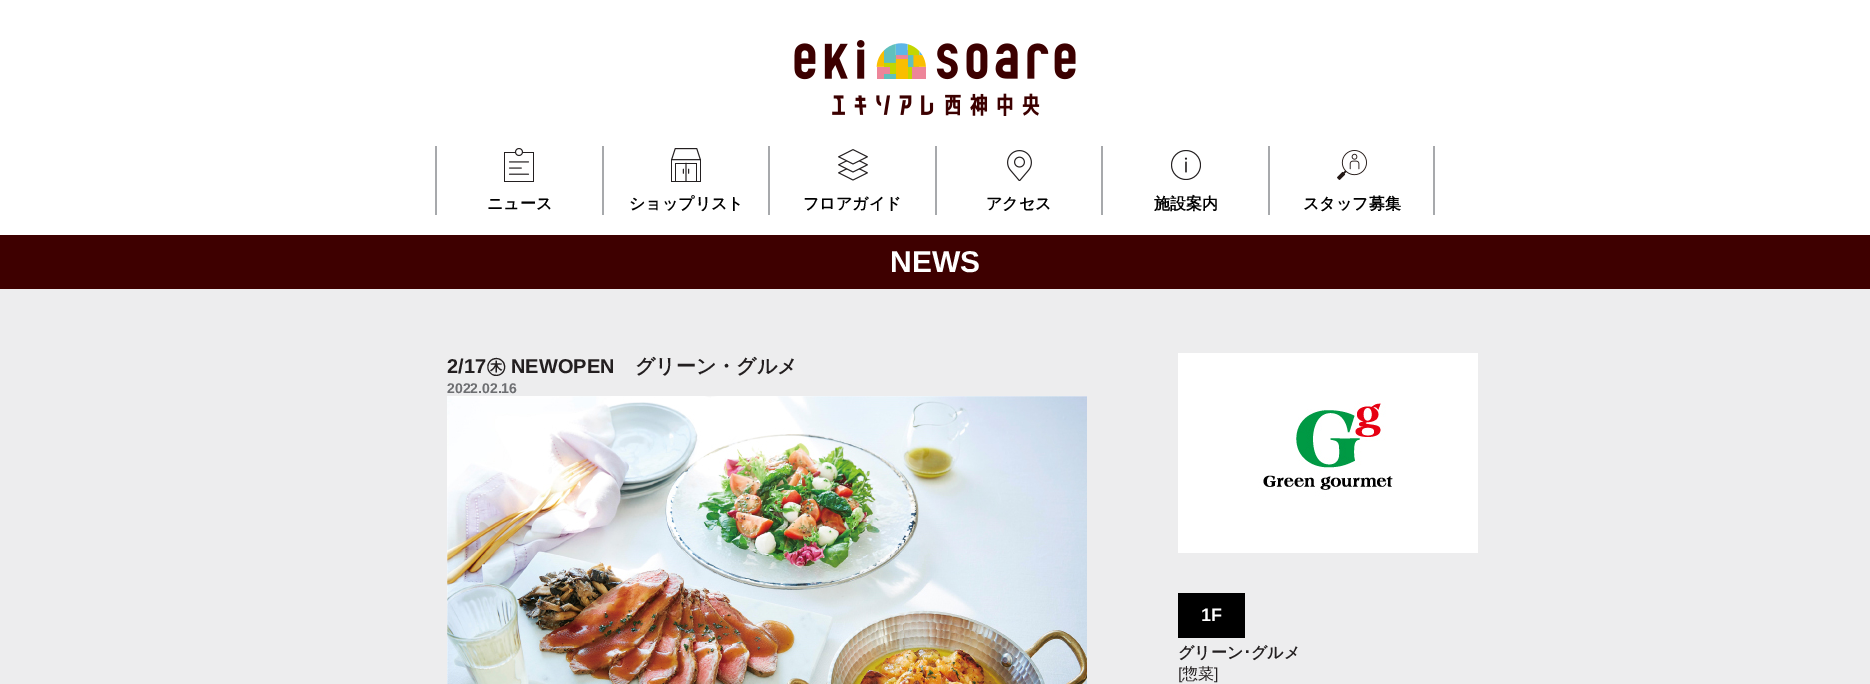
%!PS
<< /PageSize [1870 684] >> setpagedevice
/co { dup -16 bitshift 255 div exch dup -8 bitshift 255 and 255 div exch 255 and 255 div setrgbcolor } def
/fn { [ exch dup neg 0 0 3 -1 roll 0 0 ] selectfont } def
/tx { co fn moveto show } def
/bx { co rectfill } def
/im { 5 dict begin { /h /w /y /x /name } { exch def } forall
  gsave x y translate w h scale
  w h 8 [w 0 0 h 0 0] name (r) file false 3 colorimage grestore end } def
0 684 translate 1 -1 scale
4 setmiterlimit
0 0 1870 684 16#FFFFFF bx
(media/1.raw) 794 40 282 76 im
435 146 2 69 16#A7A9AC bx
(media/2.raw) 504 148 30 34 im
602 146 2 69 16#A7A9AC bx
(media/3.raw) 671 148 30 34 im
768 146 2 69 16#A7A9AC bx
(media/4.raw) 838 149 30 32 im
935 146 2 69 16#A7A9AC bx
(media/5.raw) 1007 150 25 31 im
1101 146 2 69 16#A7A9AC bx
(media/6.raw) 1171 150 30 30 im
1433 146 2 69 16#A7A9AC bx
1268 146 2 69 16#A7A9AC bx
(media/7.raw) 1337 150 30 30 im
0 235 1870 54 16#3E0000 bx
0 289 1870 395 16#EDEDEE bx
(media/8.raw) 447 396 640 288 im
(media/9.raw) 1178 353 300 200 im
1178 593 67 45 16#000000 bx
(ニュース) 487 209 /WenQuanYiZenHei-Bold 16 16#000000 tx
(ショップリスト) 629 209 /WenQuanYiZenHei-Bold 16 16#000000 tx
(フロアガイド) 803 209 /WenQuanYiZenHei-Bold 16 16#000000 tx
(アクセス) 986 209 /WenQuanYiZenHei-Bold 16 16#000000 tx
(施設案内) 1154 209 /WenQuanYiZenHei-Bold 16 16#000000 tx
(スタッフ募集) 1303 209 /WenQuanYiZenHei-Bold 16 16#000000 tx
(NEWS) 890 272 /LiberationSans-Bold 30 16#FFFFFF tx
(2/17) 447 373 /LiberationSans-Bold 20 16#231F20 tx
(㊍) 486 373 /WenQuanYiZenHei-Bold 20 16#231F20 tx
(NEWOPEN) 511 373 /LiberationSans-Bold 20 16#231F20 tx
(グリーン・グルメ) 635 373 /WenQuanYiZenHei-Bold 20 16#231F20 tx
(2022.02.16) 447 393 /LiberationSans-Bold 14 16#6D6E71 tx
(1F) 1201 621 /LiberationSans-Bold 18 16#FFFFFF tx
(グリーン) 1178 658 /WenQuanYiZenHei-Bold 16 16#231F20 tx
(･) 1243 658 /IPAGothic-Bold 16 16#231F20 tx
(グルメ) 1251 658 /WenQuanYiZenHei-Bold 16 16#231F20 tx
([) 1178 679 /LiberationSans-Regular 16 16#231F20 tx
(惣菜) 1182 679 /WenQuanYiZenHei-Medium 16 16#231F20 tx
(]) 1214 679 /LiberationSans-Regular 16 16#231F20 tx
showpage
